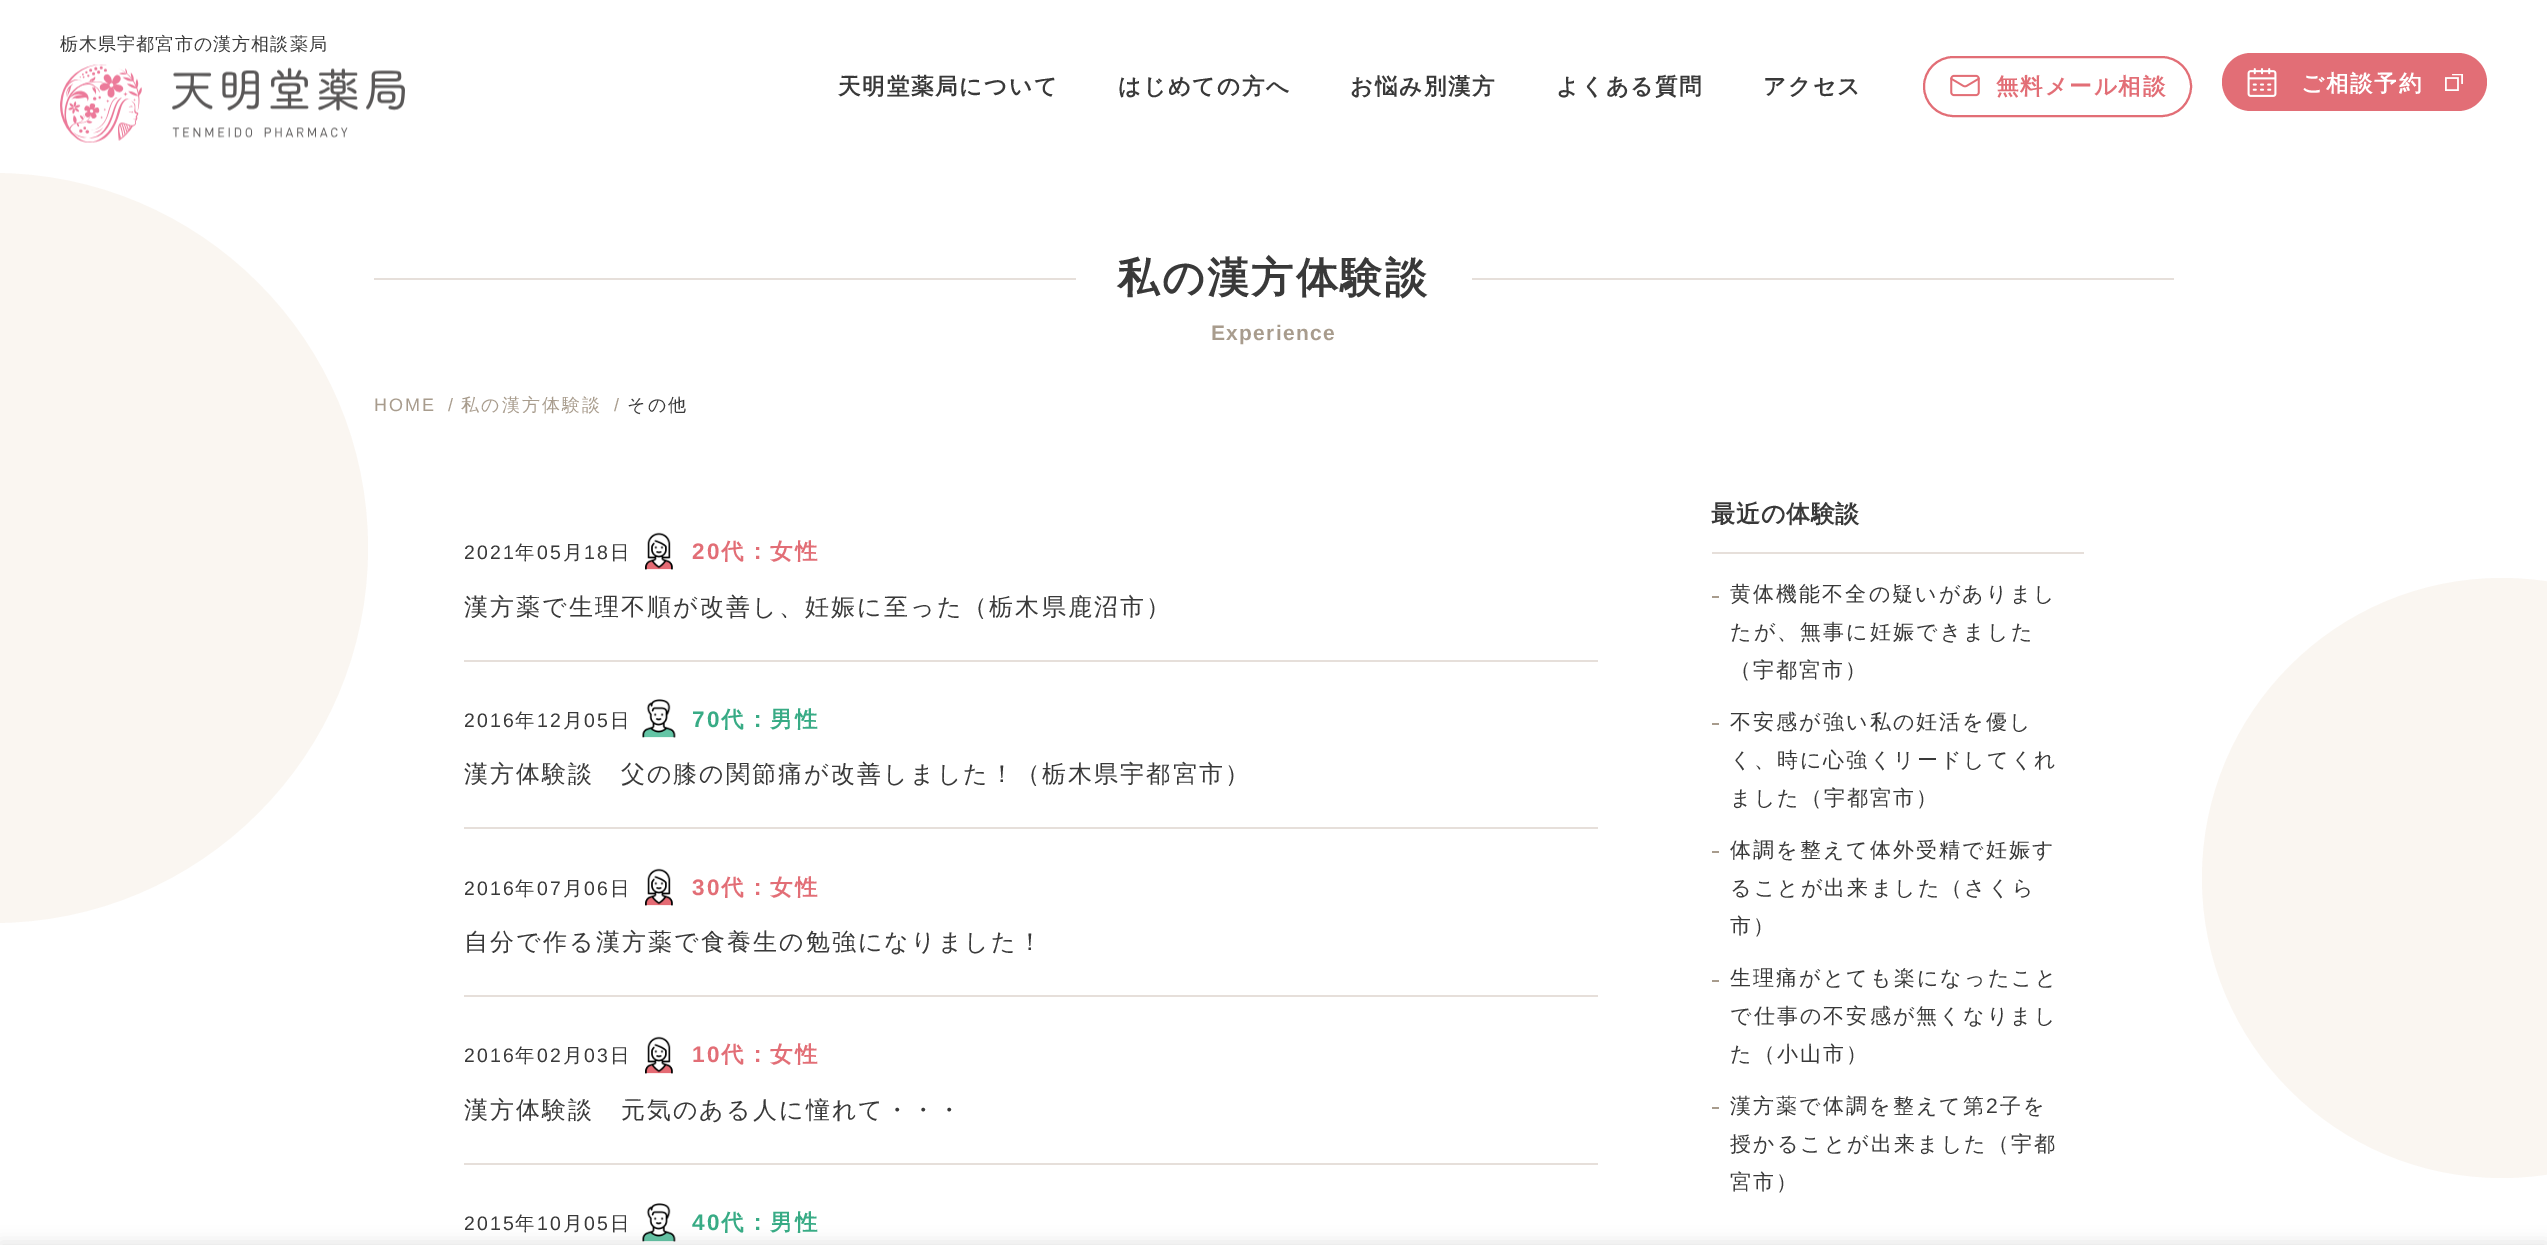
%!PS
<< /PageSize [2547 1245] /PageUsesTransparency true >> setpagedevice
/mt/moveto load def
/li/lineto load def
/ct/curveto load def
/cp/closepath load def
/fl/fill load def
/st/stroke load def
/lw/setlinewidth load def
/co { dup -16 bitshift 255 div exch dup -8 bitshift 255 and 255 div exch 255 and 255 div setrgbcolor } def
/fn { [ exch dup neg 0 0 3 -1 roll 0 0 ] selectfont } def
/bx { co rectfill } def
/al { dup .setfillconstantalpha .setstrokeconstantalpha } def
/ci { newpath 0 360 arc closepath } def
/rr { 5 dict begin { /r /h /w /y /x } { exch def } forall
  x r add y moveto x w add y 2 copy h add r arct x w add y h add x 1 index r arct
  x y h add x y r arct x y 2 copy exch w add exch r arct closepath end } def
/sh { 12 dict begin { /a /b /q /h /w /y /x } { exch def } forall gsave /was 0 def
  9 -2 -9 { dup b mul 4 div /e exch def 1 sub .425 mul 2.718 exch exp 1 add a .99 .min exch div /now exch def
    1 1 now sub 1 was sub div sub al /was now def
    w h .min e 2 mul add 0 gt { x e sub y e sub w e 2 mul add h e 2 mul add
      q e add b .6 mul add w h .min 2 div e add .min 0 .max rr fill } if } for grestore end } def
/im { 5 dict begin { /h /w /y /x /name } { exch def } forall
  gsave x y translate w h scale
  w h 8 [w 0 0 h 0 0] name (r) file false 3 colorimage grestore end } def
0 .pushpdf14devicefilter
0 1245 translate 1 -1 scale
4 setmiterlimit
0 0 2547 1245 16#FFFFFF bx
(media/1.raw) 60 64 345 79 im
16#E26E76 co
2 lw
1924 57 267 59 29.5 rr st
(media/2.raw) 1950 74 30 23 im
2222 53 265 58 29 rr fl
(media/3.raw) 2247 68 30 29 im
(media/4.raw) 2445 74 18 17 im
16#FAF6F1 co
0 173 mt -7 173 li 200 173 368 341 368 548 ct 368 755 200 923 -7 923 ct 0 923 li cp fl
2502 878 300 ci fl
374 278 1800 2 16#E6DFDA bx
1076 278 396 2 16#FFFFFF bx
464 660 1134 2 16#E6DFDA bx
(media/5.raw) 645 532 28 38 im
464 827 1134 2 16#E6DFDA bx
(media/6.raw) 642 699 34 39 im
464 995 1134 2 16#E6DFDA bx
(media/7.raw) 645 868 28 38 im
464 1163 1134 2 16#E6DFDA bx
(media/8.raw) 645 1036 28 38 im
(media/6.raw) 642 1203 34 39 im
1712 552 372 2 16#E6DFDA bx
1712 596 7 2 16#A89C8D bx
1712 723 7 2 16#A89C8D bx
1712 851 7 2 16#A89C8D bx
1712 980 7 2 16#A89C8D bx
1712 1107 7 2 16#A89C8D bx
16#000000 co
0 1242 2547 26 0 7.5 .1 sh
/WenQuanYiZenHei-Medium 18 fn
16#393939 co
60 50 mt 1.1 0 (栃木県宇都宮市の漢方相談薬局) ashow
/WenQuanYiZenHei-Bold 22.5 fn
838 94 mt 1.75 0 (天明堂薬局について) ashow
1118 94 mt 1.75 0 (はじめての方へ) ashow
1350 94 mt 1.75 0 (お悩み別漢方) ashow
1556 94 mt 1.75 0 (よくある質問) ashow
1763 94 mt 1.75 0 (アクセス) ashow
16#E26E76 co
1996 94 mt 1.75 0 (無料メール相談) ashow
16#FFFFFF co
2301 91 mt 1.75 0 (ご相談予約) ashow
/WenQuanYiZenHei-Bold 42 fn
16#393939 co
1117 292 mt 2.5 0 (私の漢方体験談) ashow
/LiberationSans-Bold 21 fn
16#A89C8D co
1211 340 mt 1.25 0 (Experience) ashow
/LiberationSans-Regular 18 fn
374 411 mt 2.1 0 (HOME) ashow
448 411 mt 2.1 0 (/) ashow
/WenQuanYiZenHei-Medium 18 fn
461 411 mt 2.1 0 (私の漢方体験談) ashow
/LiberationSans-Regular 18 fn
614 411 mt 2.1 0 (/) ashow
/WenQuanYiZenHei-Medium 18 fn
16#393939 co
627 411 mt 2.1 0 (その他) ashow
/LiberationSans-Regular 19.5 fn
464 559 mt 2.1 0 (2021) ashow
/WenQuanYiZenHei-Medium 19.5 fn
515 559 mt 2.1 0 (年) ashow
/LiberationSans-Regular 19.5 fn
537 559 mt 2.1 0 (05) ashow
/WenQuanYiZenHei-Medium 19.5 fn
563 559 mt 2.1 0 (月) ashow
/LiberationSans-Regular 19.5 fn
584 559 mt 2.1 0 (18) ashow
/WenQuanYiZenHei-Medium 19.5 fn
610 559 mt 2.1 0 (日) ashow
/LiberationSans-Bold 22.5 fn
16#E26E76 co
692 559 mt 2.1 0 (20) ashow
/WenQuanYiZenHei-Bold 22.5 fn
721 559 mt 2.1 0 (代：女性) ashow
/WenQuanYiZenHei-Medium 24 fn
16#393939 co
464 615 mt 2.1 0 (漢方薬で生理不順が改善し、妊娠に至った（栃木県鹿沼市）) ashow
/LiberationSans-Regular 19.5 fn
464 727 mt 2.1 0 (2016) ashow
/WenQuanYiZenHei-Medium 19.5 fn
515 727 mt 2.1 0 (年) ashow
/LiberationSans-Regular 19.5 fn
537 727 mt 2.1 0 (12) ashow
/WenQuanYiZenHei-Medium 19.5 fn
563 727 mt 2.1 0 (月) ashow
/LiberationSans-Regular 19.5 fn
584 727 mt 2.1 0 (05) ashow
/WenQuanYiZenHei-Medium 19.5 fn
610 727 mt 2.1 0 (日) ashow
/LiberationSans-Bold 22.5 fn
16#38AB85 co
692 727 mt 2.1 0 (70) ashow
/WenQuanYiZenHei-Bold 22.5 fn
721 727 mt 2.1 0 (代：男性) ashow
/WenQuanYiZenHei-Medium 24 fn
16#393939 co
464 782 mt 2.1 0 (漢方体験談　父の膝の関節痛が改善しました！（栃木県宇都宮市）) ashow
/LiberationSans-Regular 19.5 fn
464 895 mt 2.1 0 (2016) ashow
/WenQuanYiZenHei-Medium 19.5 fn
515 895 mt 2.1 0 (年) ashow
/LiberationSans-Regular 19.5 fn
537 895 mt 2.1 0 (07) ashow
/WenQuanYiZenHei-Medium 19.5 fn
563 895 mt 2.1 0 (月) ashow
/LiberationSans-Regular 19.5 fn
584 895 mt 2.1 0 (06) ashow
/WenQuanYiZenHei-Medium 19.5 fn
610 895 mt 2.1 0 (日) ashow
/LiberationSans-Bold 22.5 fn
16#E26E76 co
692 895 mt 2.1 0 (30) ashow
/WenQuanYiZenHei-Bold 22.5 fn
721 895 mt 2.1 0 (代：女性) ashow
/WenQuanYiZenHei-Medium 24 fn
16#393939 co
464 950 mt 2.1 0 (自分で作る漢方薬で食養生の勉強になりました！) ashow
/LiberationSans-Regular 19.5 fn
464 1062 mt 2.1 0 (2016) ashow
/WenQuanYiZenHei-Medium 19.5 fn
515 1062 mt 2.1 0 (年) ashow
/LiberationSans-Regular 19.5 fn
537 1062 mt 2.1 0 (02) ashow
/WenQuanYiZenHei-Medium 19.5 fn
563 1062 mt 2.1 0 (月) ashow
/LiberationSans-Regular 19.5 fn
584 1062 mt 2.1 0 (03) ashow
/WenQuanYiZenHei-Medium 19.5 fn
610 1062 mt 2.1 0 (日) ashow
/LiberationSans-Bold 22.5 fn
16#E26E76 co
692 1062 mt 2.1 0 (10) ashow
/WenQuanYiZenHei-Bold 22.5 fn
721 1062 mt 2.1 0 (代：女性) ashow
/WenQuanYiZenHei-Medium 24 fn
16#393939 co
464 1118 mt 2.1 0 (漢方体験談　元気のある人に憧れて・・・) ashow
/LiberationSans-Regular 19.5 fn
464 1230 mt 2.1 0 (2015) ashow
/WenQuanYiZenHei-Medium 19.5 fn
515 1230 mt 2.1 0 (年) ashow
/LiberationSans-Regular 19.5 fn
537 1230 mt 2.1 0 (10) ashow
/WenQuanYiZenHei-Medium 19.5 fn
563 1230 mt 2.1 0 (月) ashow
/LiberationSans-Regular 19.5 fn
584 1230 mt 2.1 0 (05) ashow
/WenQuanYiZenHei-Medium 19.5 fn
610 1230 mt 2.1 0 (日) ashow
/LiberationSans-Bold 22.5 fn
16#38AB85 co
692 1230 mt 2.1 0 (40) ashow
/WenQuanYiZenHei-Bold 22.5 fn
721 1230 mt 2.1 0 (代：男性) ashow
/WenQuanYiZenHei-Bold 24 fn
16#393939 co
1711 522 mt .75 0 (最近の体験談) ashow
/WenQuanYiZenHei-Medium 21 fn
1730 601 mt 2.1 0 (黄体機能不全の疑いがありまし) ashow
1730 639 mt 2.1 0 (たが、無事に妊娠できました) ashow
1730 677 mt 2.1 0 (（宇都宮市）) ashow
1730 729 mt 2.1 0 (不安感が強い私の妊活を優し) ashow
1730 767 mt 2.1 0 (く、時に心強くリードしてくれ) ashow
1730 805 mt 2.1 0 (ました（宇都宮市）) ashow
1730 857 mt 2.1 0 (体調を整えて体外受精で妊娠す) ashow
1730 895 mt 2.1 0 (ることが出来ました（さくら) ashow
1730 933 mt 2.1 0 (市）) ashow
1730 985 mt 2.1 0 (生理痛がとても楽になったこと) ashow
1730 1023 mt 2.1 0 (で仕事の不安感が無くなりまし) ashow
1730 1061 mt 2.1 0 (た（小山市）) ashow
1730 1113 mt 2.1 0 (漢方薬で体調を整えて第) ashow
/LiberationSans-Regular 21 fn
1986 1113 mt 2.1 0 (2) ashow
/WenQuanYiZenHei-Medium 21 fn
2000 1113 mt 2.1 0 (子を) ashow
1730 1151 mt 2.1 0 (授かることが出来ました（宇都) ashow
1730 1189 mt 2.1 0 (宮市）) ashow
.poppdf14devicefilter showpage
